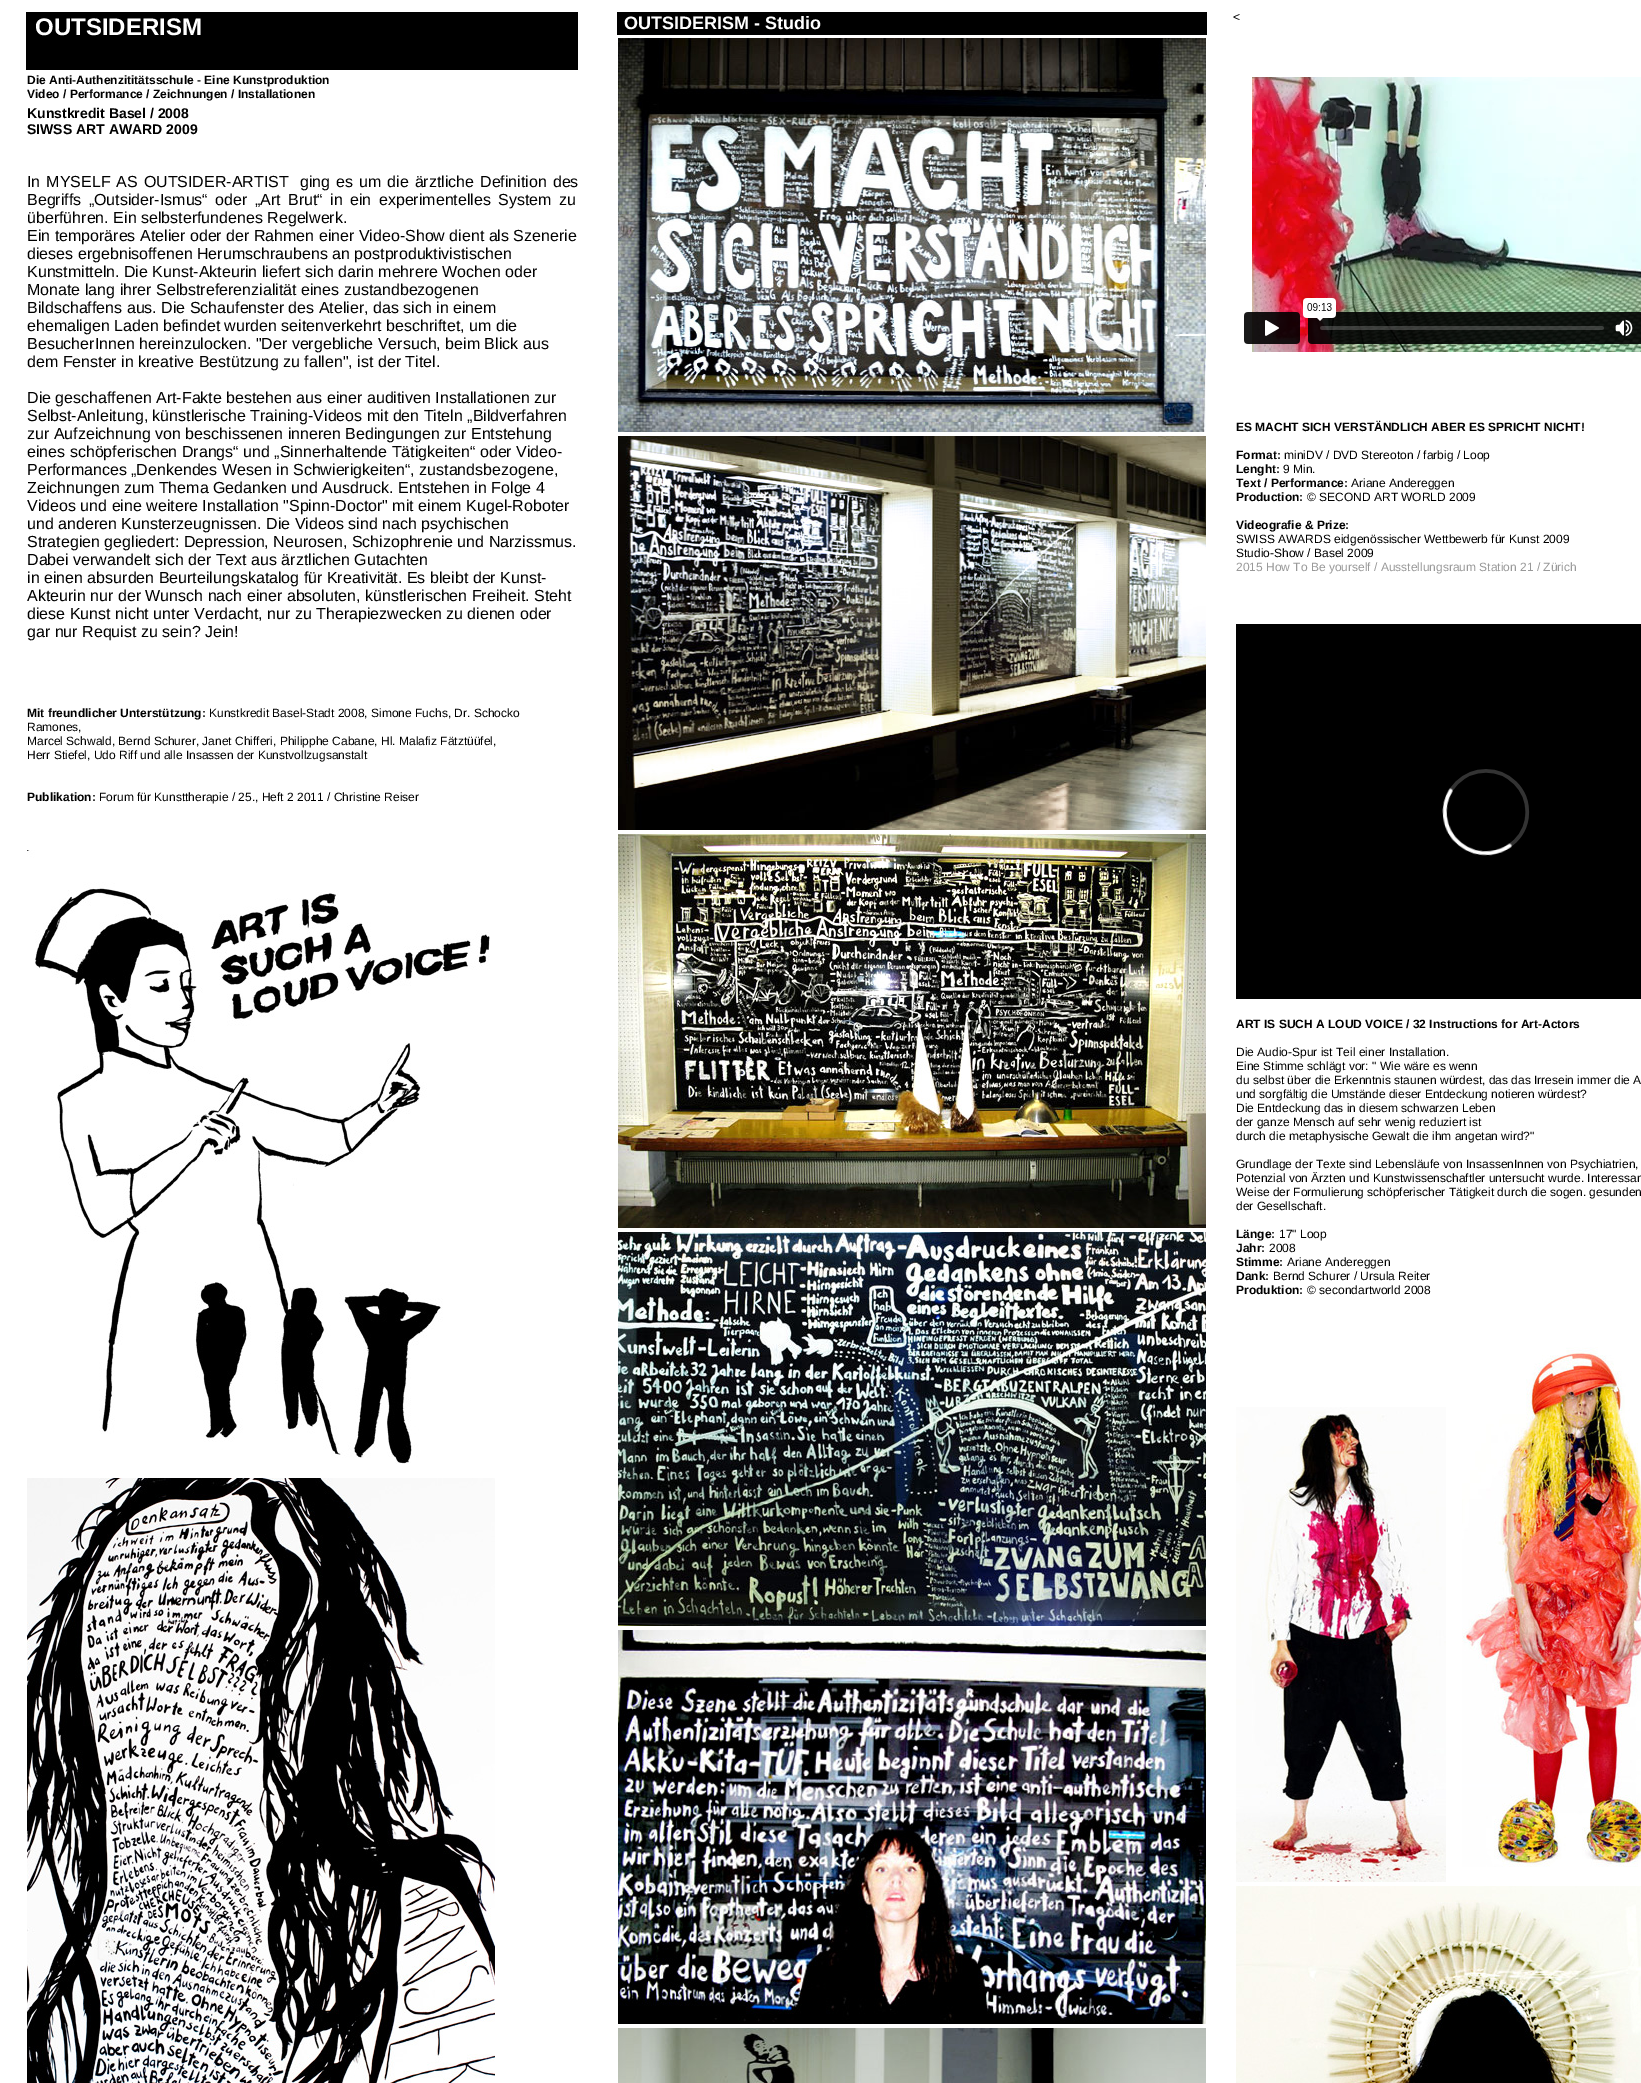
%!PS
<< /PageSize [1641 2083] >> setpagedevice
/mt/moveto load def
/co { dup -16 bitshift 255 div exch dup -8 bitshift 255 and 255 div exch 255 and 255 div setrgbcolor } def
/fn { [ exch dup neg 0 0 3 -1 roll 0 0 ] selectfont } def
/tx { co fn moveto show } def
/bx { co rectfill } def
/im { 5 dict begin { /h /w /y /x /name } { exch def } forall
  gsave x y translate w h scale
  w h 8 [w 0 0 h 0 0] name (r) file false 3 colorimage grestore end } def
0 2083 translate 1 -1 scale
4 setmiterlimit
0 0 1641 2083 16#FFFFFF bx
26 12 552 58 16#000000 bx
(media/1.raw) 27 850 463 614 im
(media/2.raw) 27 1478 468 605 im
617 12 590 23 16#000000 bx
(media/3.raw) 618 38 588 394 im
(media/4.raw) 618 436 588 394 im
(media/5.raw) 618 834 588 394 im
(media/6.raw) 618 1232 588 394 im
(media/7.raw) 618 1630 588 394 im
(media/8.raw) 618 2028 588 55 im
(media/9.raw) 1244 77 397 275 im
(media/10.raw) 1236 624 405 375 im
(media/11.raw) 1236 1407 210 475 im
(media/12.raw) 1462 1347 179 520 im
(media/13.raw) 1236 1886 405 197 im
(OUTSIDERISM) 35 35 /LiberationSans-Bold 24 16#FFFFFF tx
(Die Anti-Authenzititätsschule - Eine Kunstproduktion) 27 84 /LiberationSans-Bold 12 16#000000 tx
(Video / Performance / Zeichnungen / Installationen) 27 98 /LiberationSans-Bold 12 16#000000 tx
(Kunstkredit Basel / 2008) 27 118 /LiberationSans-Bold 14 16#000000 tx
(SIWSS ART AWARD 2009) 27 134 /LiberationSans-Bold 14 16#000000 tx
/LiberationSans-Regular 16 fn
27 187 mt 1.5 0 32 (In MYSELF AS OUTSIDER-ARTIST) widthshow
300 187 mt 1.5 0 32 (ging es um die ärztliche Definition des) widthshow
27 205 mt 3 0 32 (Begriffs „Outsider-Ismus“ oder „Art Brut“ in ein experimentelles System zu) widthshow
(überführen. Ein selbsterfundenes Regelwerk.) 27 223 /LiberationSans-Regular 16 16#000000 tx
(Ein temporäres Atelier oder der Rahmen einer Video-Show dient als Szenerie) 27 241 /LiberationSans-Regular 16 16#000000 tx
(dieses ergebnisoffenen Herumschraubens an postproduktivistischen) 27 259 /LiberationSans-Regular 16 16#000000 tx
(Kunstmitteln. Die Kunst-Akteurin liefert sich darin mehrere Wochen oder) 27 277 /LiberationSans-Regular 16 16#000000 tx
(Monate lang ihrer Selbstreferenzialität eines zustandbezogenen) 27 295 /LiberationSans-Regular 16 16#000000 tx
(Bildschaffens aus. Die Schaufenster des Atelier, das sich in einem) 27 313 /LiberationSans-Regular 16 16#000000 tx
(ehemaligen Laden befindet wurden seitenverkehrt beschriftet, um die) 27 331 /LiberationSans-Regular 16 16#000000 tx
(BesucherInnen hereinzulocken. "Der vergebliche Versuch, beim Blick aus) 27 349 /LiberationSans-Regular 16 16#000000 tx
(dem Fenster in kreative Bestützung zu fallen", ist der Titel.) 27 367 /LiberationSans-Regular 16 16#000000 tx
(Die geschaffenen Art-Fakte bestehen aus einer auditiven Installationen zur) 27 403 /LiberationSans-Regular 16 16#000000 tx
(Selbst-Anleitung, künstlerische Training-Videos mit den Titeln „Bildverfahren) 27 421 /LiberationSans-Regular 16 16#000000 tx
(zur Aufzeichnung von beschissenen inneren Bedingungen zur Entstehung) 27 439 /LiberationSans-Regular 16 16#000000 tx
(eines schöpferischen Drangs“ und „Sinnerhaltende Tätigkeiten“ oder Video-) 27 457 /LiberationSans-Regular 16 16#000000 tx
(Performances „Denkendes Wesen in Schwierigkeiten“, zustandsbezogene,) 27 475 /LiberationSans-Regular 16 16#000000 tx
(Zeichnungen zum Thema Gedanken und Ausdruck. Entstehen in Folge 4) 27 493 /LiberationSans-Regular 16 16#000000 tx
(Videos und eine weitere Installation "Spinn-Doctor" mit einem Kugel-Roboter) 27 511 /LiberationSans-Regular 16 16#000000 tx
(und anderen Kunsterzeugnissen. Die Videos sind nach psychischen) 27 529 /LiberationSans-Regular 16 16#000000 tx
(Strategien gegliedert: Depression, Neurosen, Schizophrenie und Narzissmus.) 27 547 /LiberationSans-Regular 16 16#000000 tx
(Dabei verwandelt sich der Text aus ärztlichen Gutachten) 27 565 /LiberationSans-Regular 16 16#000000 tx
(in einen absurden Beurteilungskatalog für Kreativität. Es bleibt der Kunst-) 27 583 /LiberationSans-Regular 16 16#000000 tx
(Akteurin nur der Wunsch nach einer absoluten, künstlerischen Freiheit. Steht) 27 601 /LiberationSans-Regular 16 16#000000 tx
(diese Kunst nicht unter Verdacht, nur zu Therapiezwecken zu dienen oder) 27 619 /LiberationSans-Regular 16 16#000000 tx
(gar nur Requist zu sein? Jein!) 27 637 /LiberationSans-Regular 16 16#000000 tx
(Mit freundlicher Unterstützung:) 27 717 /LiberationSans-Bold 12 16#000000 tx
(Kunstkredit Basel-Stadt 2008, Simone Fuchs, Dr. Schocko) 209 717 /LiberationSans-Regular 12 16#000000 tx
(Ramones,) 27 731 /LiberationSans-Regular 12 16#000000 tx
(Marcel Schwald, Bernd Schurer, Janet Chifferi, Philipphe Cabane, Hl. Malafiz Fätztüüfel,) 27 745 /LiberationSans-Regular 12 16#000000 tx
(Herr Stiefel, Udo Riff und alle Insassen der Kunstvollzugsanstalt) 27 759 /LiberationSans-Regular 12 16#000000 tx
(Publikation:) 27 801 /LiberationSans-Bold 12 16#000000 tx
(Forum für Kunsttherapie / 25., Heft 2 2011 / Christine Reiser) 99 801 /LiberationSans-Regular 12 16#000000 tx
(OUTSIDERISM - Studio) 624 29 /LiberationSans-Bold 18 16#FFFFFF tx
(<) 1233 21 /LiberationSans-Regular 12 16#000000 tx
(ES MACHT SICH VERSTÄNDLICH ABER ES SPRICHT NICHT!) 1236 431 /LiberationSans-Bold 12 16#000000 tx
(Format:) 1236 459 /LiberationSans-Bold 12 16#000000 tx
(miniDV / DVD Stereoton / farbig / Loop) 1284 459 /LiberationSans-Regular 12 16#000000 tx
(Lenght:) 1236 473 /LiberationSans-Bold 12 16#000000 tx
(9 Min.) 1283 473 /LiberationSans-Regular 12 16#000000 tx
(Text / Performance:) 1236 487 /LiberationSans-Bold 12 16#000000 tx
(Ariane Andereggen) 1351 487 /LiberationSans-Regular 12 16#000000 tx
(Production:) 1236 501 /LiberationSans-Bold 12 16#000000 tx
(© SECOND ART WORLD 2009) 1307 501 /LiberationSans-Regular 12 16#000000 tx
(Videografie & Prize:) 1236 529 /LiberationSans-Bold 12 16#000000 tx
(SWISS AWARDS eidgenössischer Wettbewerb für Kunst 2009) 1236 543 /LiberationSans-Regular 12 16#000000 tx
(Studio-Show / Basel 2009) 1236 557 /LiberationSans-Regular 12 16#000000 tx
(2015 How To Be yourself / Ausstellungsraum Station 21 / Zürich) 1236 571 /LiberationSans-Regular 12 16#999999 tx
(ART IS SUCH A LOUD VOICE / 32 Instructions for Art-Actors) 1236 1028 /LiberationSans-Bold 12 16#000000 tx
(Die Audio-Spur ist Teil einer Installation.) 1236 1056 /LiberationSans-Regular 12 16#000000 tx
(Eine Stimme schlägt vor: " Wie wäre es wenn) 1236 1070 /LiberationSans-Regular 12 16#000000 tx
(du selbst über die Erkenntnis staunen würdest, das das Irresein immer die A) 1236 1084 /LiberationSans-Regular 12 16#000000 tx
(und sorgfältig die Umstände dieser Entdeckung notieren würdest?) 1236 1098 /LiberationSans-Regular 12 16#000000 tx
(Die Entdeckung das in diesem schwarzen Leben) 1236 1112 /LiberationSans-Regular 12 16#000000 tx
(der ganze Mensch auf sehr wenig reduziert ist) 1236 1126 /LiberationSans-Regular 12 16#000000 tx
(durch die metaphysische Gewalt die ihm angetan wird?") 1236 1140 /LiberationSans-Regular 12 16#000000 tx
(Grundlage der Texte sind Lebensläufe von InsassenInnen von Psychiatrien,) 1236 1168 /LiberationSans-Regular 12 16#000000 tx
(Potenzial von Ärzten und Kunstwissenschaftler untersucht wurde. Interessan) 1236 1182 /LiberationSans-Regular 12 16#000000 tx
(Weise der Formulierung schöpferischer Tätigkeit durch die sogen. gesunden) 1236 1196 /LiberationSans-Regular 12 16#000000 tx
(der Gesellschaft.) 1236 1210 /LiberationSans-Regular 12 16#000000 tx
(Länge:) 1236 1238 /LiberationSans-Bold 12 16#000000 tx
(17" Loop) 1279 1238 /LiberationSans-Regular 12 16#000000 tx
(Jahr:) 1236 1252 /LiberationSans-Bold 12 16#000000 tx
(2008) 1269 1252 /LiberationSans-Regular 12 16#000000 tx
(Stimme:) 1236 1266 /LiberationSans-Bold 12 16#000000 tx
(Ariane Andereggen) 1287 1266 /LiberationSans-Regular 12 16#000000 tx
(Dank:) 1236 1280 /LiberationSans-Bold 12 16#000000 tx
(Bernd Schurer / Ursula Reiter) 1273 1280 /LiberationSans-Regular 12 16#000000 tx
(Produktion:) 1236 1294 /LiberationSans-Bold 12 16#000000 tx
(© secondartworld 2008) 1307 1294 /LiberationSans-Regular 12 16#000000 tx
showpage
